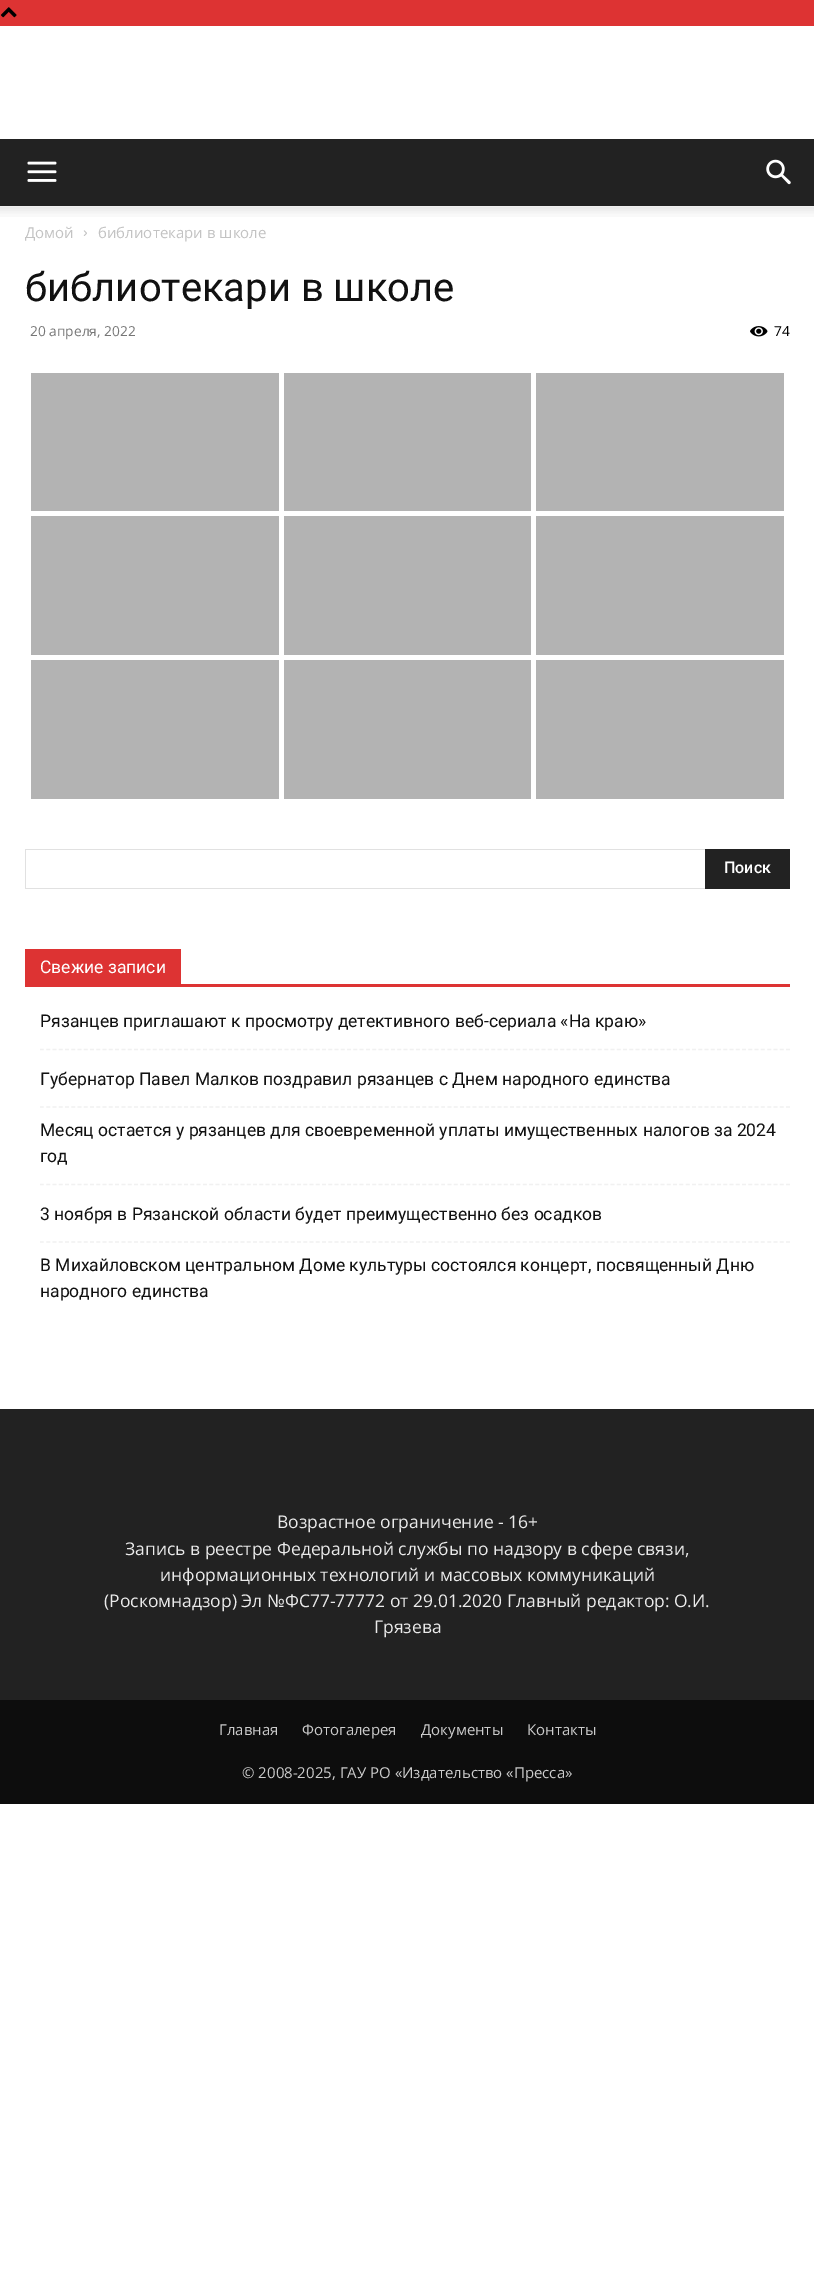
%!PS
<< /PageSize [814 2294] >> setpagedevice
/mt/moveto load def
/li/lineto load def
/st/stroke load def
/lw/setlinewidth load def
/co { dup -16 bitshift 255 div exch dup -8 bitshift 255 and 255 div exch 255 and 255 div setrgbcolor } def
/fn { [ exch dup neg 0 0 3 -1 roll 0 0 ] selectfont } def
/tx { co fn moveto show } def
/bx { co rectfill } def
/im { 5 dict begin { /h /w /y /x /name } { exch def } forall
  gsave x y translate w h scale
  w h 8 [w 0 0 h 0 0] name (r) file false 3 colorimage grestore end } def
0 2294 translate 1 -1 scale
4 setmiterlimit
0 0 814 2294 16#FFFFFF bx
0 0 814 26 16#DD3333 bx
(media/1.raw) 0 7 17 11 im
0 139 814 67 16#222222 bx
(media/2.raw) 27 161 30 21 im
(media/3.raw) 766 159 25 26 im
(media/4.raw) 0 206 814 11 im
(media/5.raw) 83 230 4 6 im
(media/6.raw) 750 326 18 11 im
31 373 248 138 16#B3B3B3 bx
284 373 247 138 16#B3B3B3 bx
536 373 248 138 16#B3B3B3 bx
31 516 248 139 16#B3B3B3 bx
284 516 247 139 16#B3B3B3 bx
536 516 248 139 16#B3B3B3 bx
31 660 248 139 16#B3B3B3 bx
284 660 247 139 16#B3B3B3 bx
536 660 248 139 16#B3B3B3 bx
25 849 680 1 16#E1E1E1 bx
25 888 680 1 16#E1E1E1 bx
25 849 1 40 16#E1E1E1 bx
705 849 85 40 16#222222 bx
25 984 765 3 16#DD3333 bx
25 949 156 35 16#DD3333 bx
16#F1F1F1 co
1.2 lw
[3.75 2.52] 0 setdash
40 1049.5 mt 790 1049.5 li st
40 1107 mt 790 1107 li st
40 1184.5 mt 790 1184.5 li st
40 1242 mt 790 1242 li st
0 1409 814 291 16#222222 bx
0 1700 814 104 16#0D0D0D bx
(Домой) 25 238 /OpenSans-Regular 15 16#C3C3C3 tx
(библиотекари в школе) 98 238 /OpenSans-Regular 15 16#C3C3C3 tx
(библиотекари в школе) 25 301 /Roboto-Regular 40 16#111111 tx
(20 апреля, 2022) 30 336 /OpenSans-Regular 13.75 16#767676 tx
(74) 774 336 /OpenSans-Regular 13.75 16#000000 tx
(Поиск) 724 873 /Roboto-Medium 16 16#FFFFFF tx
(Свежие записи) 40 973 /Roboto-Regular 17.5 16#FFFFFF tx
(Рязанцев приглашают к просмотру детективного веб-сериала «На краю») 40 1027 /Roboto-Regular 17.5 16#111111 tx
(Губернатор Павел Малков поздравил рязанцев с Днем народного единства) 40 1085 /Roboto-Regular 17.5 16#111111 tx
(Месяц остается у рязанцев для своевременной уплаты имущественных налогов за 2024) 40 1136 /Roboto-Regular 17.5 16#111111 tx
(год) 40 1162 /Roboto-Regular 17.5 16#111111 tx
(3 ноября в Рязанской области будет преимущественно без осадков) 40 1220 /Roboto-Regular 17.5 16#111111 tx
(В Михайловском центральном Доме культуры состоялся концерт, посвященный Дню) 40 1271 /Roboto-Regular 17.5 16#111111 tx
(народного единства) 40 1297 /Roboto-Regular 17.5 16#111111 tx
(Возрастное ограничение - 16+) 277 1528 /OpenSans-Regular 17.5 16#EAEAEA tx
(Запись в реестре Федеральной службы по надзору в сфере связи,) 125 1555 /OpenSans-Regular 17.5 16#EAEAEA tx
(информационных технологий и массовых коммуникаций) 160 1581 /OpenSans-Regular 17.5 16#EAEAEA tx
(\(Роскомнадзор\) Эл №ФС77-77772 от 29.01.2020 Главный редактор: О.И.) 104 1607 /OpenSans-Regular 17.5 16#EAEAEA tx
(Грязева) 374 1633 /OpenSans-Regular 17.5 16#EAEAEA tx
(Главная) 219 1735 /OpenSans-Regular 15 16#CCCCCC tx
(Фотогалерея) 302 1735 /OpenSans-Regular 15 16#CCCCCC tx
(Документы) 421 1735 /OpenSans-Regular 15 16#CCCCCC tx
(Контакты) 527 1735 /OpenSans-Regular 15 16#CCCCCC tx
(© 2008-2025, ГАУ РО «Издательство «Пресса») 242 1778 /OpenSans-Regular 15 16#CCCCCC tx
showpage
